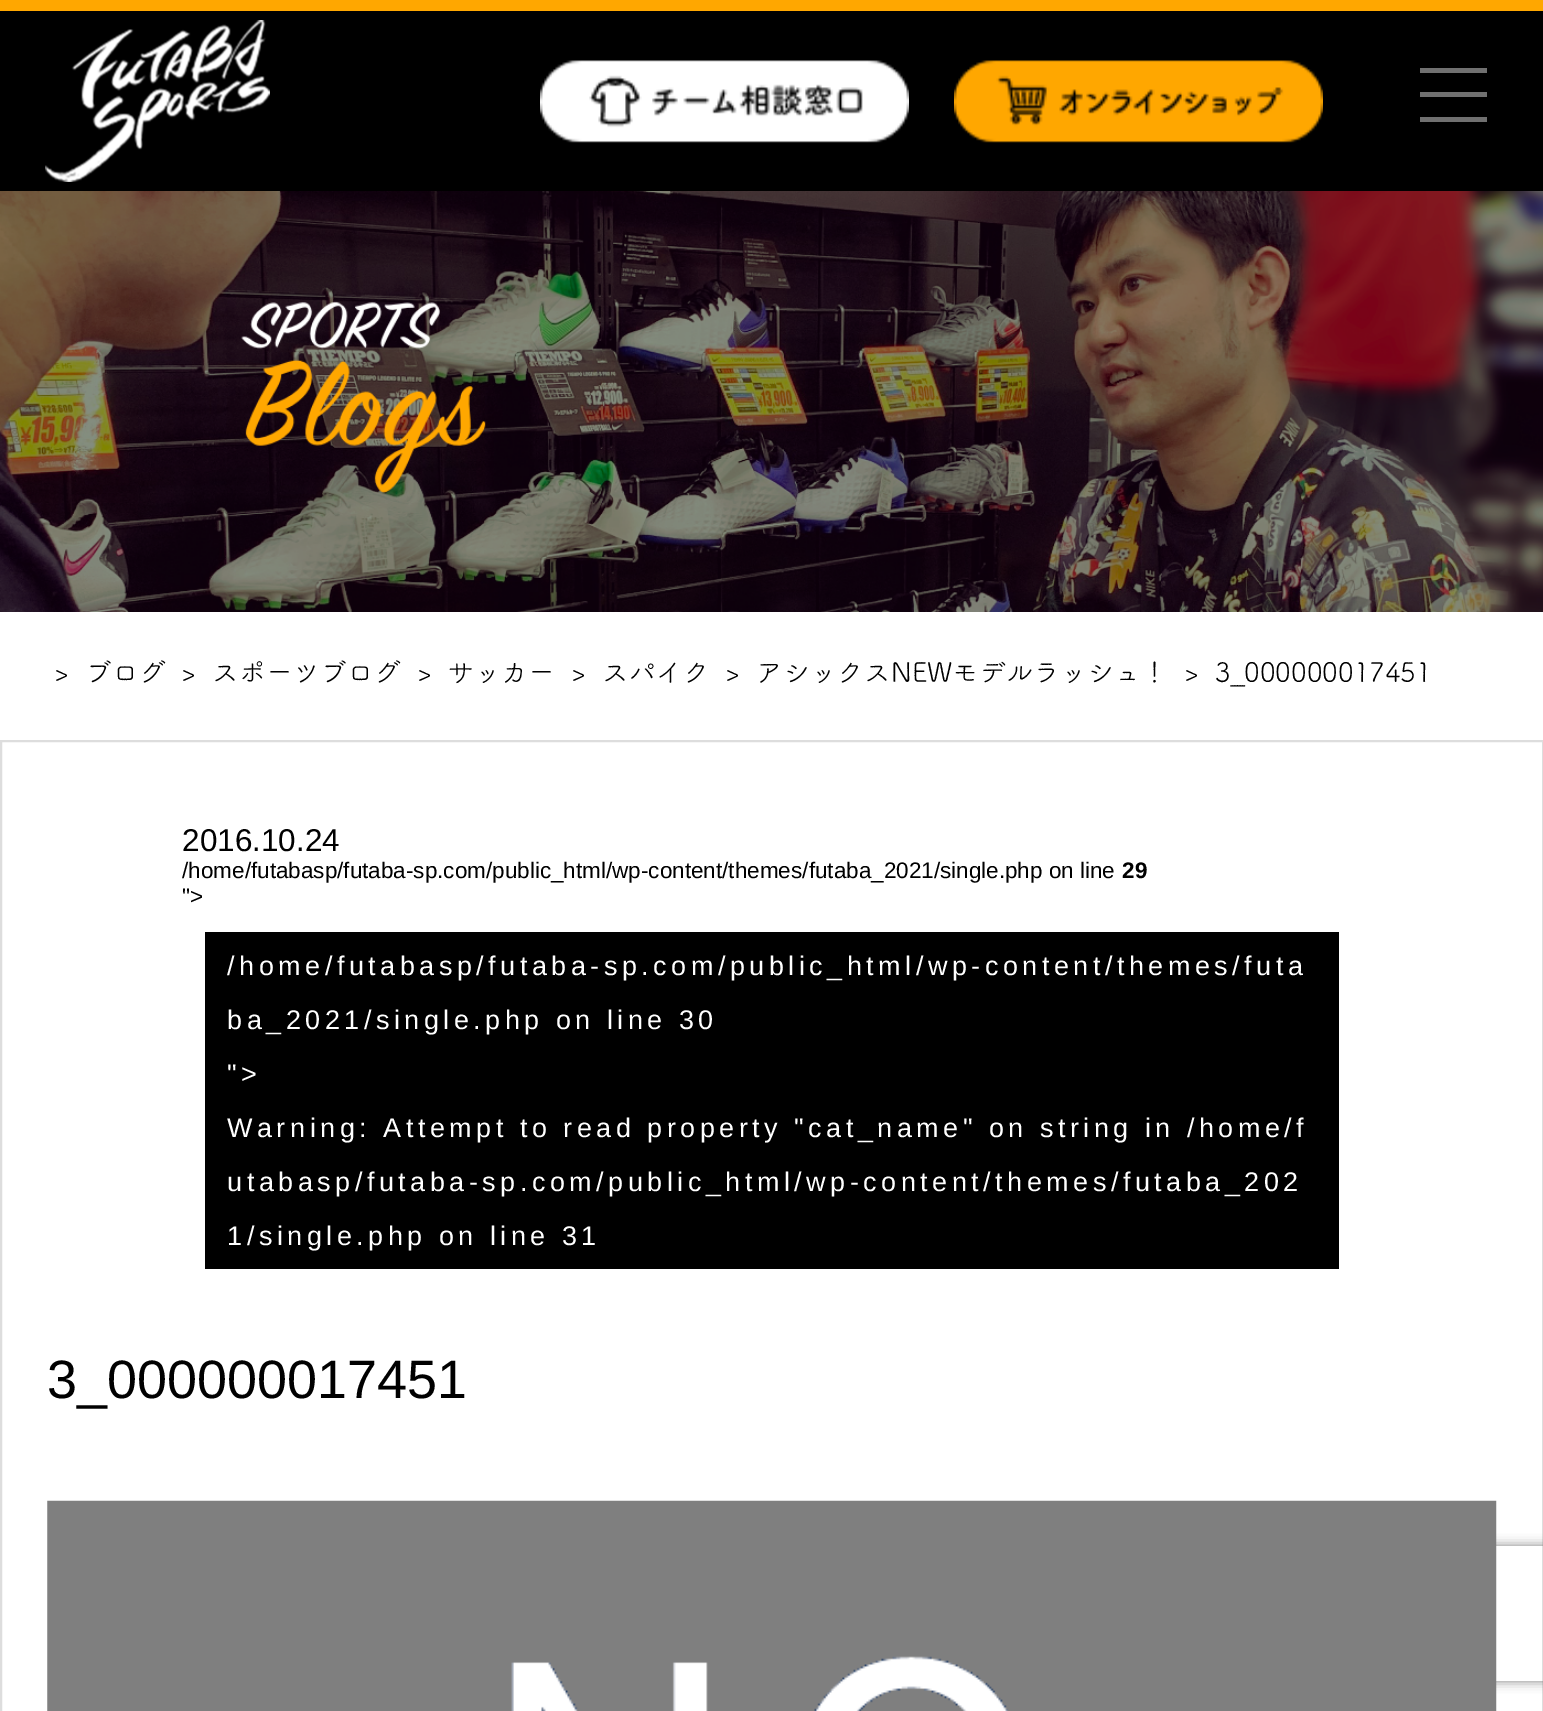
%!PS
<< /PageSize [1543 1711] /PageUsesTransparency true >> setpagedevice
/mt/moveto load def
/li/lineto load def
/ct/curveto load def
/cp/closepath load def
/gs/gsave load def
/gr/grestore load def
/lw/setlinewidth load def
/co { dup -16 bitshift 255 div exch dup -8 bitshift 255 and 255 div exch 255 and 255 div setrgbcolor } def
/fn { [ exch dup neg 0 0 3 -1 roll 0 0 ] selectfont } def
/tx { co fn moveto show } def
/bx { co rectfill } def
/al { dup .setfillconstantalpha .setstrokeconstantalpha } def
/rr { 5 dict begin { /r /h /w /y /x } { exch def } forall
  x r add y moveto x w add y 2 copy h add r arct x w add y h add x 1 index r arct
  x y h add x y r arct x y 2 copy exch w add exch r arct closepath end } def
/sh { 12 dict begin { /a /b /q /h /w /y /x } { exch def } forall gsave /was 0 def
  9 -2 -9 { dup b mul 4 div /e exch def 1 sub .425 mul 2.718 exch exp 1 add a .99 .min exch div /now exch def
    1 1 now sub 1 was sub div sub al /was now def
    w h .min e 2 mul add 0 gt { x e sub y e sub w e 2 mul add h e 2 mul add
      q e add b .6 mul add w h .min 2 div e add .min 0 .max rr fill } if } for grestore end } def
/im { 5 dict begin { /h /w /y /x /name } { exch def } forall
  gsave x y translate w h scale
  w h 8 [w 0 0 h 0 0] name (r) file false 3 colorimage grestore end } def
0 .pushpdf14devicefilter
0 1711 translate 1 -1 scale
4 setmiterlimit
0 0 1543 1711 16#FFFFFF bx
0 11 1543 180 16#000000 bx
0 0 1543 11 16#FFA700 bx
(media/1.raw) 45 20 225 162 im
(media/2.raw) 540 60 369 83 im
(media/3.raw) 954 60 369 83 im
1420 68 67 5 16#707070 bx
1420 92 67 5 16#707070 bx
1420 117 67 5 16#707070 bx
(media/4.raw) 0 191 1543 421 im
16#DDDDDD co
2 lw
1 741 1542 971 rectstroke
205 932 1134 337 16#000000 bx
(media/5.raw) 47 1500 1450 211 im
gs
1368 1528 mt 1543 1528 li 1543 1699 li 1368 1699 li cp 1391 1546 mt 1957 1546 li 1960 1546 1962 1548 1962 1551 ct 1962 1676 li 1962 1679 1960 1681 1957 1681 ct 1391 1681 li 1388 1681 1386 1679 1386 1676 ct 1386 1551 li 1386 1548 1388 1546 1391 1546 ct cp eoclip newpath
16#808080 co
1386 1546 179 135 5 5.5 1 sh
gr
(>) 54 682 /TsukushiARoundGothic-Regular 27 16#000000 tx
(ブログ) 85 682 /TsukushiARoundGothic-Regular 27 16#000000 tx
(>) 181 682 /TsukushiARoundGothic-Regular 27 16#000000 tx
(スポーツブログ) 212 682 /TsukushiARoundGothic-Regular 27 16#000000 tx
(>) 417 682 /TsukushiARoundGothic-Regular 27 16#000000 tx
(サッカー) 447 682 /TsukushiARoundGothic-Regular 27 16#000000 tx
(>) 571 682 /TsukushiARoundGothic-Regular 27 16#000000 tx
(スパイク) 602 682 /TsukushiARoundGothic-Regular 27 16#000000 tx
(>) 725 682 /TsukushiARoundGothic-Regular 27 16#000000 tx
(アシックスNEWモデルラッシュ！) 756 682 /TsukushiARoundGothic-Regular 27 16#000000 tx
(>) 1184 682 /TsukushiARoundGothic-Regular 27 16#000000 tx
(3_000000017451) 1215 682 /TsukushiARoundGothic-Regular 27 16#000000 tx
(2016.10.24) 182 851 /LiberationSans-Regular 31.5 16#000000 tx
(/home/futabasp/futaba-sp.com/public_html/wp-content/themes/futaba_2021/single.php on line) 182 878 /LiberationSans-Regular 22.5 16#000000 tx
(29) 1122 878 /LiberationSans-Bold 22.5 16#000000 tx
(">) 182 904 /LiberationSans-Regular 22.5 16#000000 tx
/LiberationSans-Regular 27 fn
16#FFFFFF co
227 975 mt 4.5 0 (/home/futabasp/futaba-sp.com/public_html/wp-content/themes/futa) ashow
227 1029 mt 4.5 0 (ba_2021/single.php on line 30) ashow
227 1083 mt 4.5 0 (">) ashow
227 1137 mt 4.5 0 (Warning: Attempt to read property "cat_name" on string in /home/f) ashow
227 1191 mt 4.5 0 (utabasp/futaba-sp.com/public_html/wp-content/themes/futaba_202) ashow
227 1245 mt 4.5 0 (1/single.php on line 31) ashow
(3_000000017451) 47 1398 /LiberationSans-Regular 54 16#000000 tx
.poppdf14devicefilter showpage
